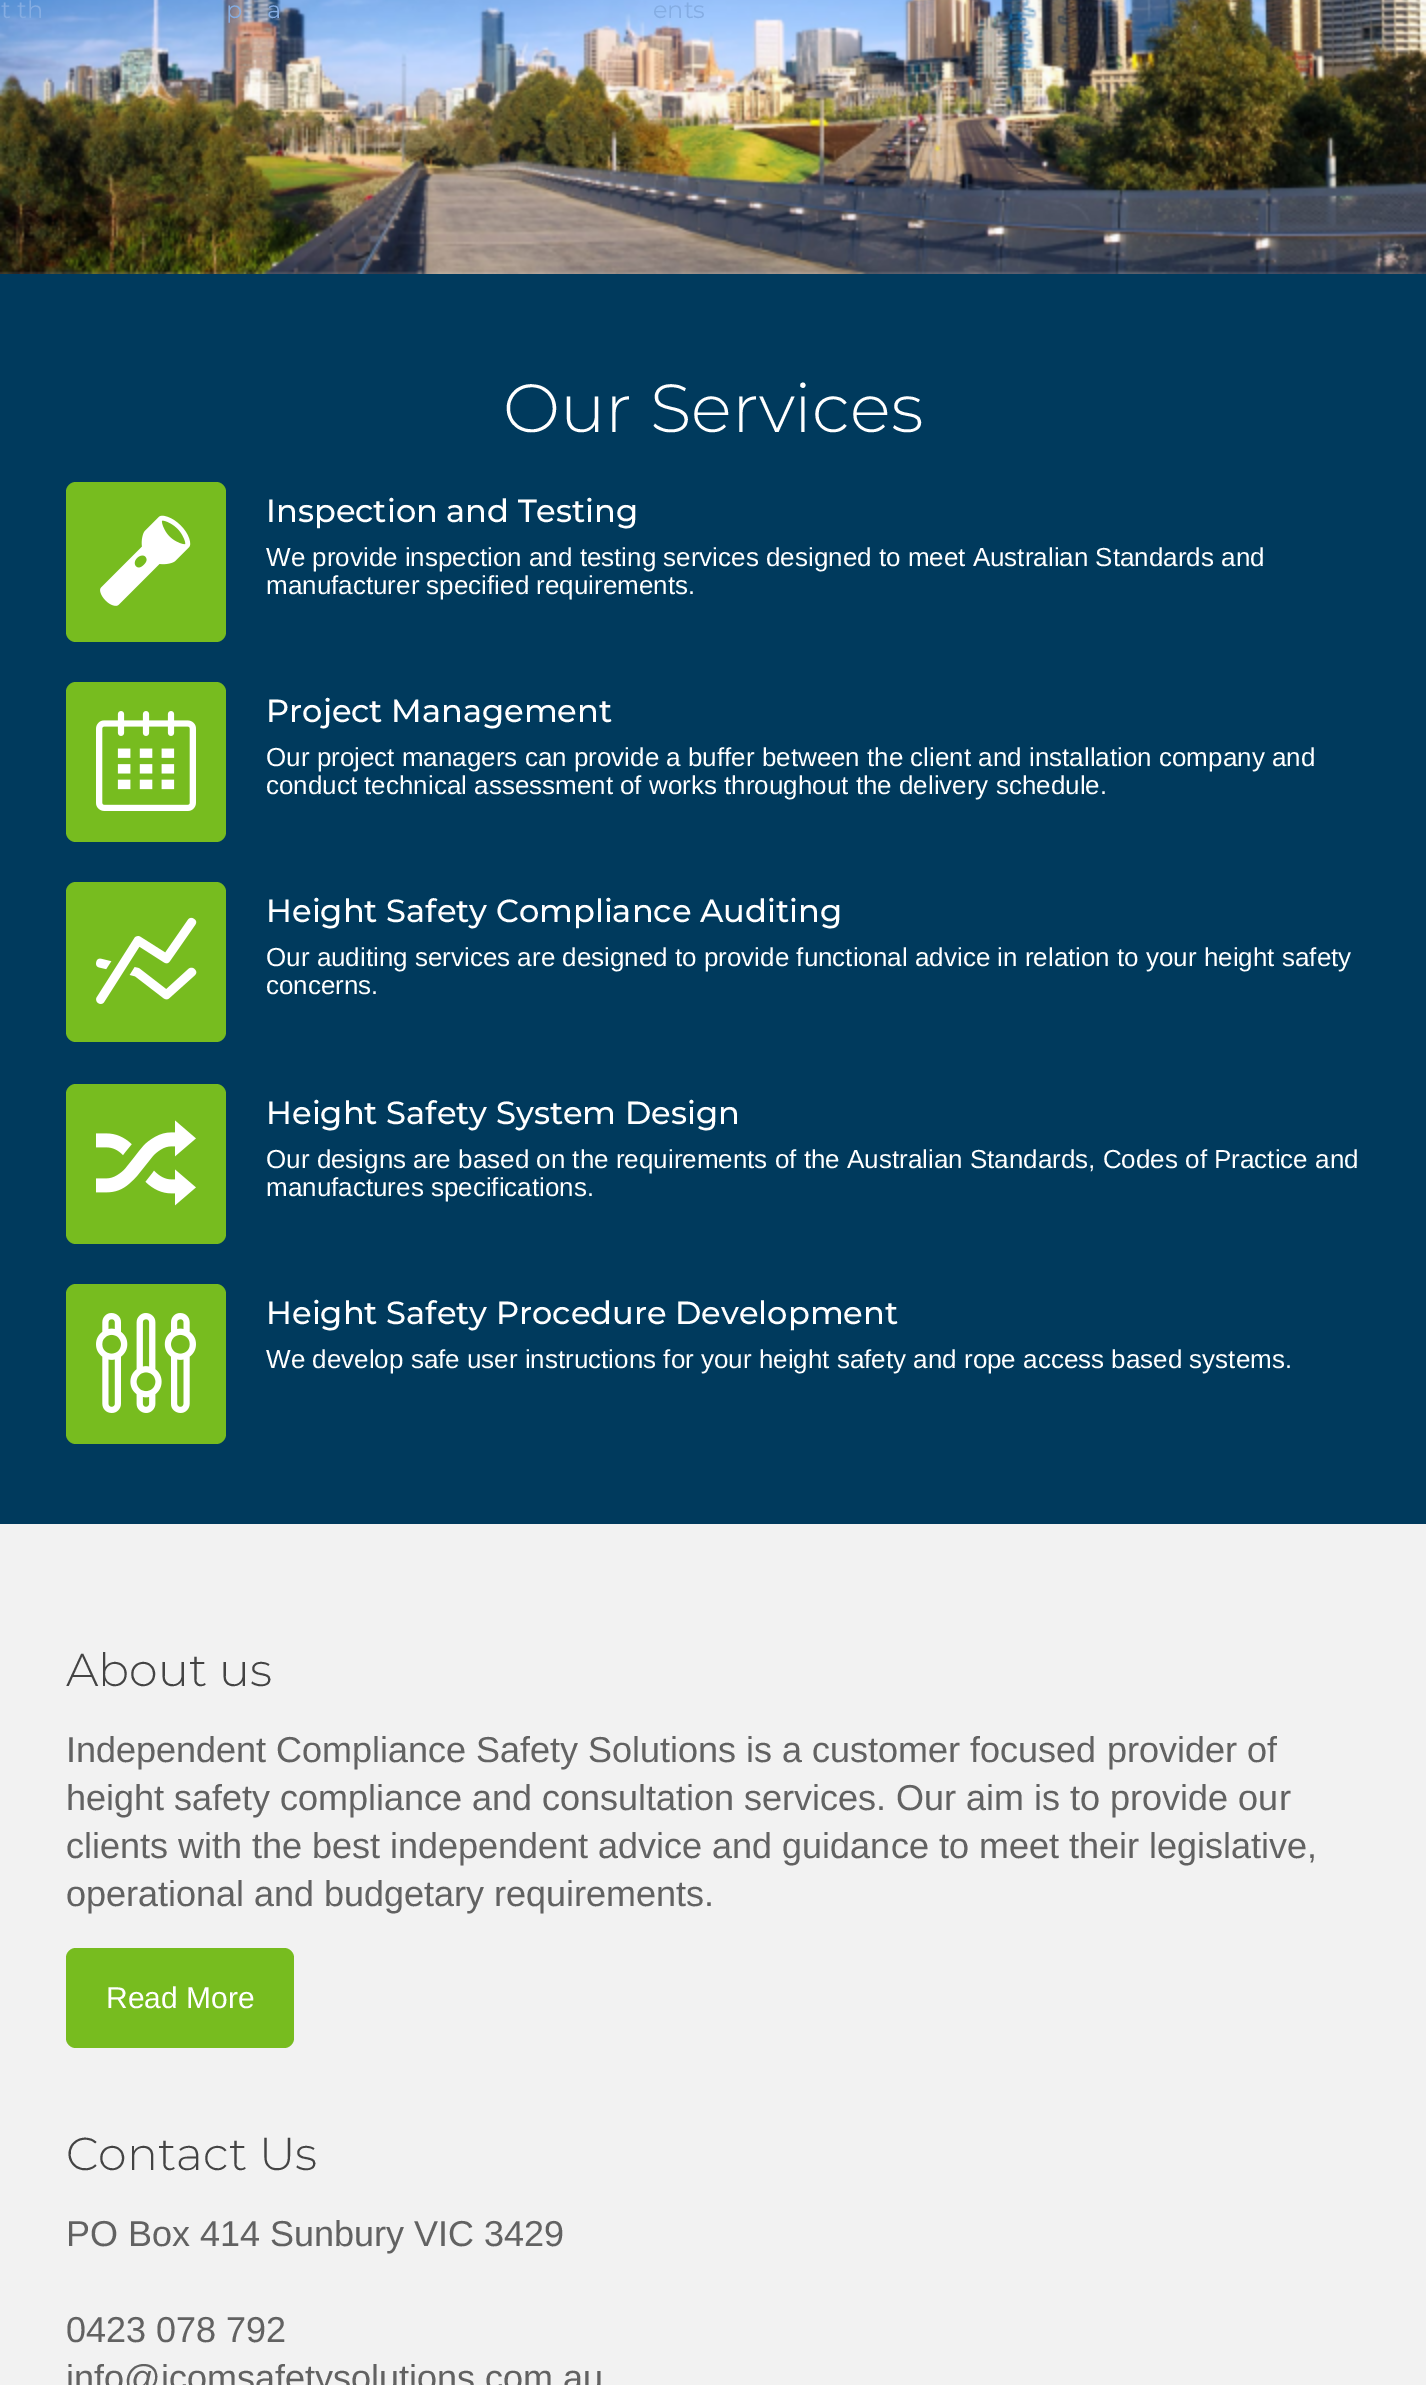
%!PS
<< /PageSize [1426 2385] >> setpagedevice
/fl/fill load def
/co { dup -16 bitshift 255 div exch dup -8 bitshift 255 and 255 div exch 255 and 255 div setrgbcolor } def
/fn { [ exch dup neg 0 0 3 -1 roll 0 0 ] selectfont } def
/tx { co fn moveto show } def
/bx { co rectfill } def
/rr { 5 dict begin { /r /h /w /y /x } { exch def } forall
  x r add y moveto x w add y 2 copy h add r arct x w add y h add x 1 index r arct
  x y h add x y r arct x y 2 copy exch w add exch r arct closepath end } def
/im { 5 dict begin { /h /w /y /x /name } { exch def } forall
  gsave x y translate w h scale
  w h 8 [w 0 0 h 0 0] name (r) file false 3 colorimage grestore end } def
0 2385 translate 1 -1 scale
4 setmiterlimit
0 0 1426 2385 16#FFFFFF bx
(media/1.raw) 0 0 1426 274 im
0 274 1426 1250 16#003A5D bx
16#77BC1F co
66 482 160 160 10 rr fl
(media/2.raw) 100 515 91 91 im
66 682 160 160 10 rr fl
(media/3.raw) 96 711 100 100 im
66 882 160 160 10 rr fl
(media/4.raw) 96 917 101 87 im
66 1084 160 160 10 rr fl
(media/5.raw) 96 1120 100 86 im
66 1284 160 160 10 rr fl
(media/6.raw) 96 1313 100 100 im
0 1524 1426 861 16#F2F2F2 bx
16#77BC1F co
66 1948 228 100 10 rr fl
(t th) 1 18 /Montserrat-Thin 24 16#85ADE3 tx
(p) 226 18 /Montserrat-Thin 24 16#85ADE3 tx
(a) 267 18 /Montserrat-Thin 24 16#85ADE3 tx
(ents) 653 18 /Montserrat-Thin 24 16#85ADE3 tx
(Our Services) 503 432 /Montserrat-Light 68 16#FFFFFF tx
(Inspection and Testing) 266 522 /Montserrat-Medium 32 16#FFFFFF tx
(We provide inspection and testing services designed to meet Australian Standards and) 266 566 /LiberationSans-Regular 26 16#FFFFFF tx
(manufacturer specified requirements.) 266 594 /LiberationSans-Regular 26 16#FFFFFF tx
(Project Management) 266 722 /Montserrat-Medium 32 16#FFFFFF tx
(Our project managers can provide a buffer between the client and installation company and) 266 766 /LiberationSans-Regular 26 16#FFFFFF tx
(conduct technical assessment of works throughout the delivery schedule.) 266 794 /LiberationSans-Regular 26 16#FFFFFF tx
(Height Safety Compliance Auditing) 266 922 /Montserrat-Medium 32 16#FFFFFF tx
(Our auditing services are designed to provide functional advice in relation to your height safety) 266 966 /LiberationSans-Regular 26 16#FFFFFF tx
(concerns.) 266 994 /LiberationSans-Regular 26 16#FFFFFF tx
(Height Safety System Design) 266 1124 /Montserrat-Medium 32 16#FFFFFF tx
(Our designs are based on the requirements of the Australian Standards, Codes of Practice and) 266 1168 /LiberationSans-Regular 26 16#FFFFFF tx
(manufactures specifications.) 266 1196 /LiberationSans-Regular 26 16#FFFFFF tx
(Height Safety Procedure Development) 266 1324 /Montserrat-Medium 32 16#FFFFFF tx
(We develop safe user instructions for your height safety and rope access based systems.) 266 1368 /LiberationSans-Regular 26 16#FFFFFF tx
(About us) 66 1686 /Montserrat-Light 46 16#444444 tx
(Independent Compliance Safety Solutions is a customer focused provider of) 66 1762 /LiberationSans-Regular 36 16#626262 tx
(height safety compliance and consultation services. Our aim is to provide our) 66 1810 /LiberationSans-Regular 36 16#626262 tx
(clients with the best independent advice and guidance to meet their legislative,) 66 1858 /LiberationSans-Regular 36 16#626262 tx
(operational and budgetary requirements.) 66 1906 /LiberationSans-Regular 36 16#626262 tx
(Read More) 106 2008 /LiberationSans-Regular 30 16#FFFFFF tx
(Contact Us) 66 2170 /Montserrat-Light 46 16#444444 tx
(PO Box 414 Sunbury VIC 3429) 66 2246 /LiberationSans-Regular 36 16#626262 tx
(0423 078 792) 66 2342 /LiberationSans-Regular 36 16#626262 tx
(info@icomsafetysolutions.com.au) 66 2390 /LiberationSans-Regular 36 16#626262 tx
showpage
